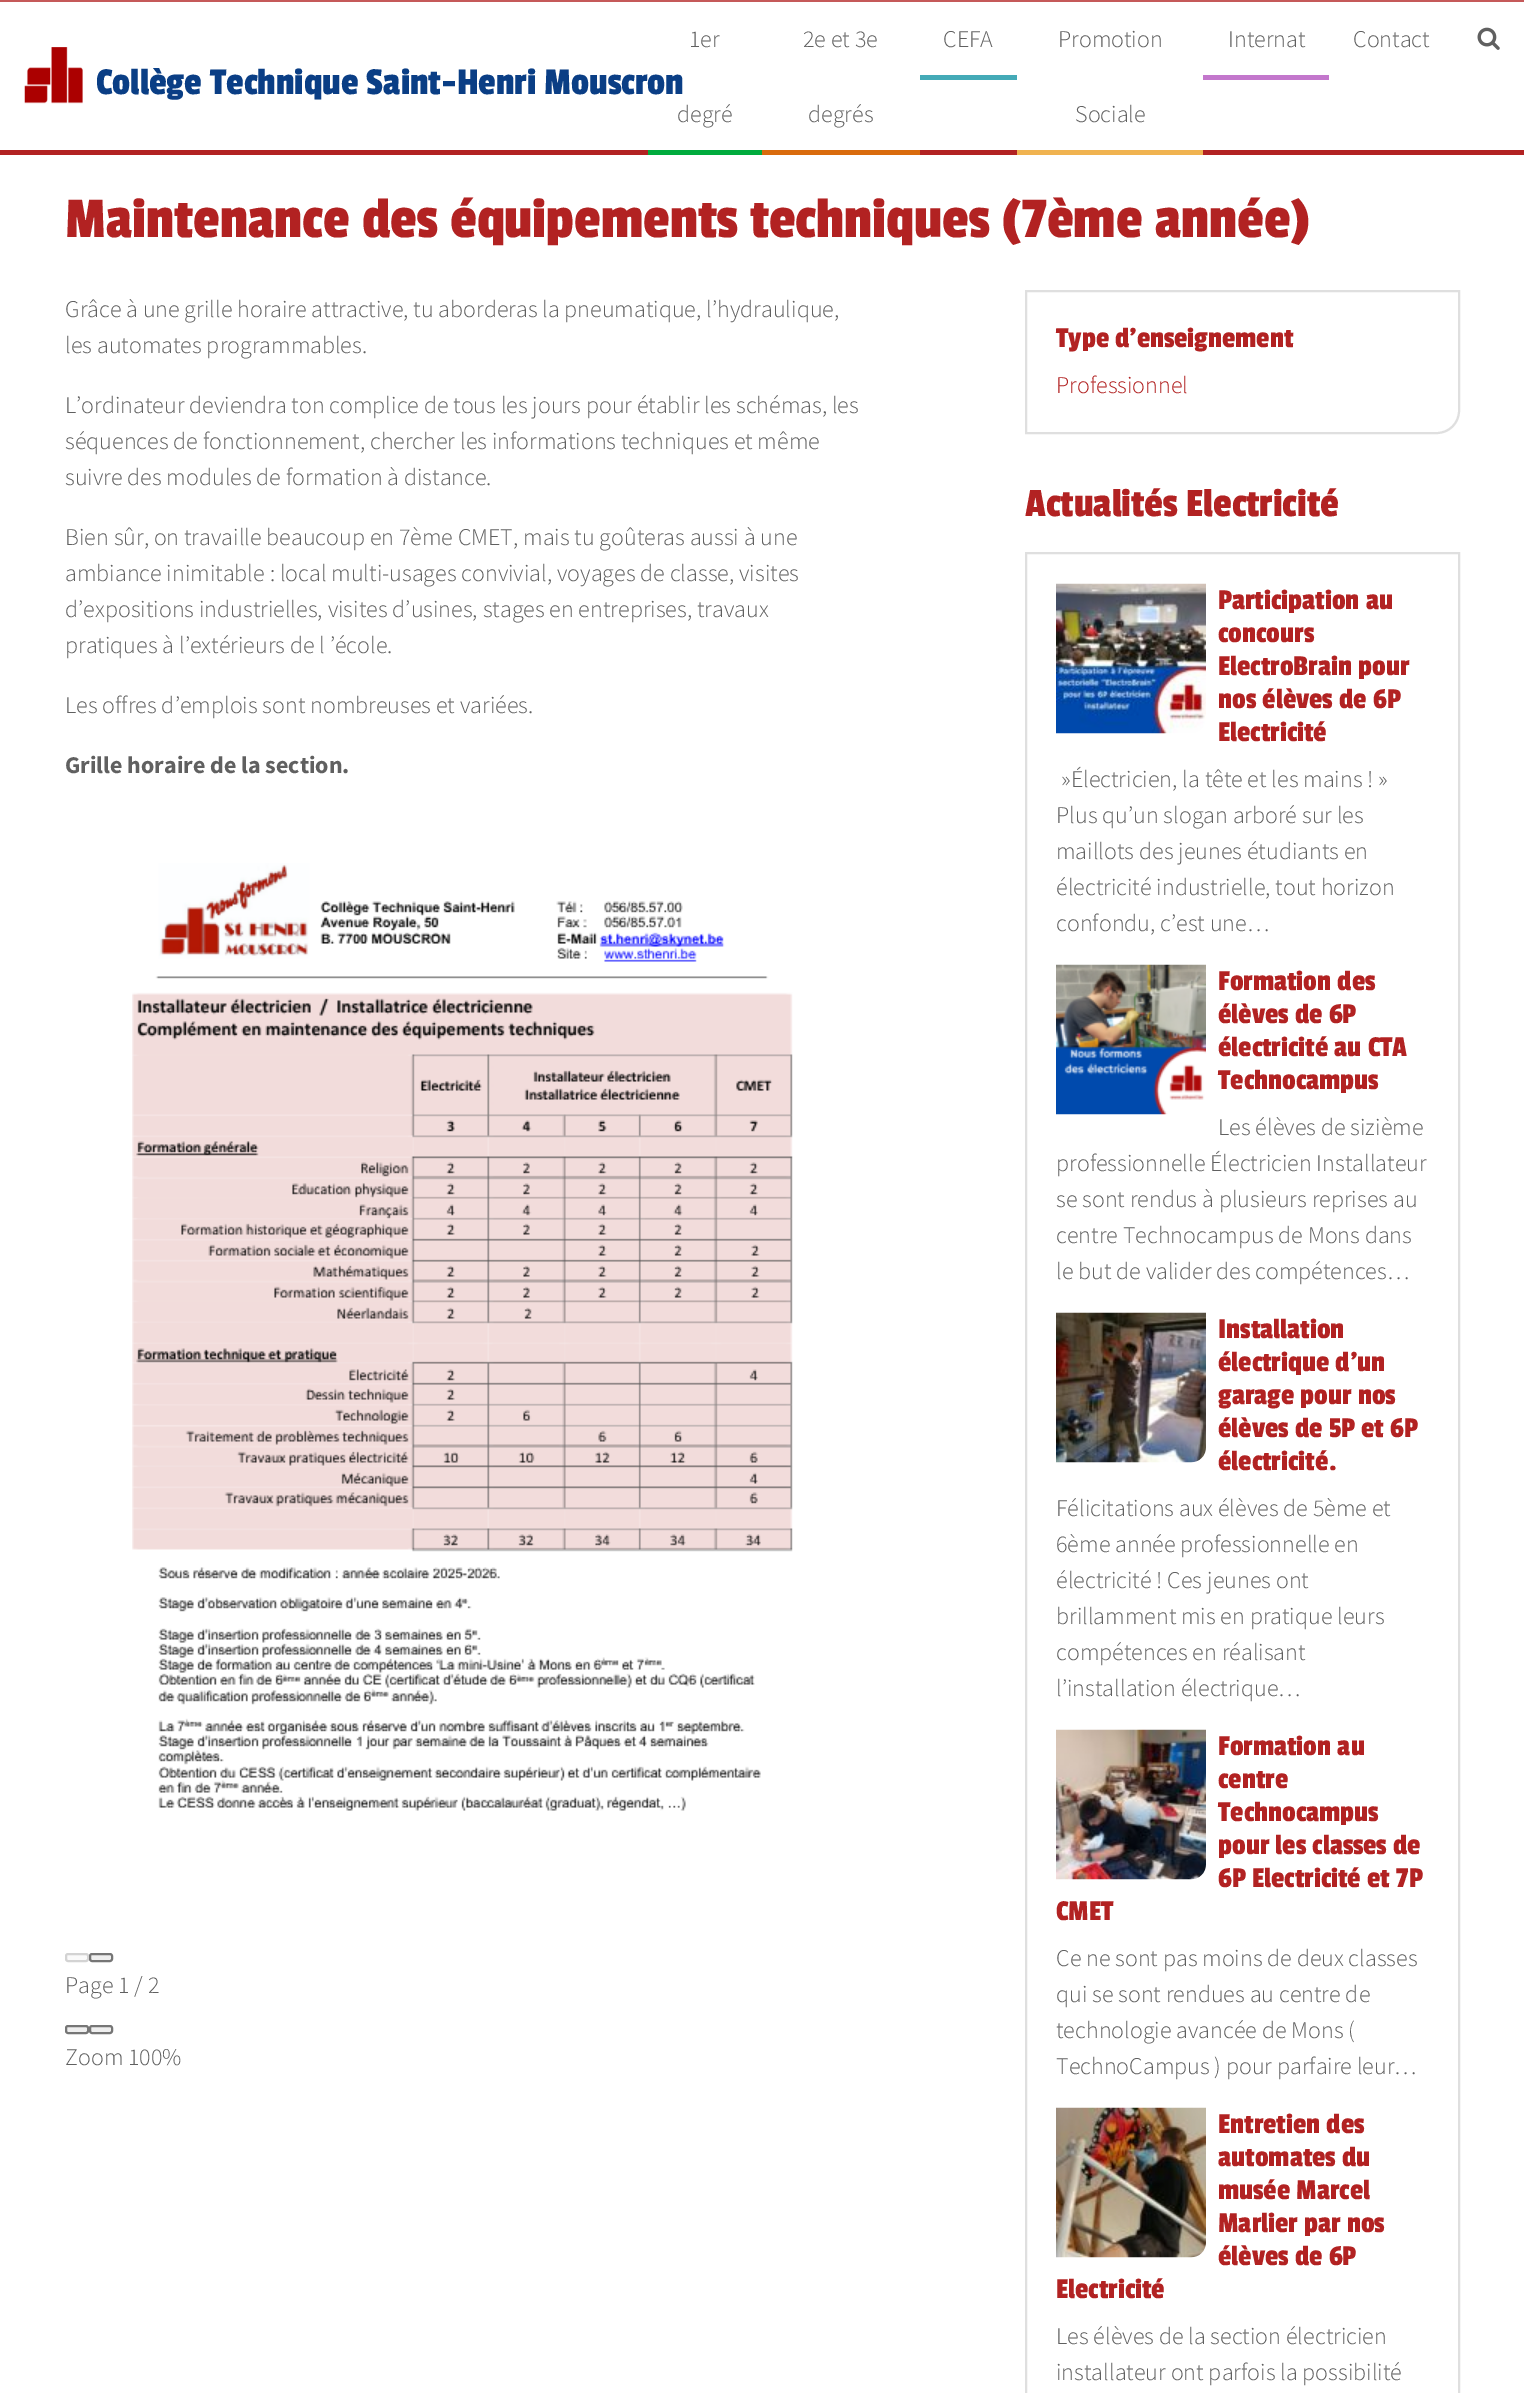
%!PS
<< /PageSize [1524 2393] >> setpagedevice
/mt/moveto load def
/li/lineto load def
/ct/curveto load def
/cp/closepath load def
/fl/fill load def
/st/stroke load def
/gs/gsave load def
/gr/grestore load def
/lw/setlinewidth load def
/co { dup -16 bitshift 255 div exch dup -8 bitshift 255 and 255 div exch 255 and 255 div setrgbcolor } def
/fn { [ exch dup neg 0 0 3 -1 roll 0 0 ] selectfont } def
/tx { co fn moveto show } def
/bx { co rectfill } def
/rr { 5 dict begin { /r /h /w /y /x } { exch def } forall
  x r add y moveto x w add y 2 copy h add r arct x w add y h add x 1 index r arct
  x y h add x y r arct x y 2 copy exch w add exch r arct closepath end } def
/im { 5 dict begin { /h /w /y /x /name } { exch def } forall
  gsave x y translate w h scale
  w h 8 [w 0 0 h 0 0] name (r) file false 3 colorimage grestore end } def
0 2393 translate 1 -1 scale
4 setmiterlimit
0 0 1524 2393 16#FFFFFF bx
0 0 1524 2 16#C55959 bx
(media/1.raw) 24 47 59 57 im
0 150 1524 5 16#B22222 bx
648 150 114 5 16#00AB3D bx
762 150 158 5 16#D96B0D bx
920 75 97 5 16#44AAB7 bx
1017 150 186 5 16#F0B350 bx
1203 75 126 5 16#C377CC bx
(media/2.raw) 1477 27 23 23 im
(media/3.raw) 132 863 661 948 im
16#FAFAFA co
66 1954 22 7 2 rr gs fl gr
16#D3D3D3 co
2 lw
st
16#EFEFEF co
90 1954 22 7 2 rr gs fl gr
16#767676 co
st
16#EFEFEF co
66 2026 22 7 2 rr gs fl gr
16#767676 co
st
16#EFEFEF co
90 2026 22 7 2 rr gs fl gr
16#767676 co
st
16#DFDFDF co
1026 291 mt 1459 291 li 1459 411 li 1459 423 1449 433 1437 433 ct 1026 433 li cp st
1026 553 433 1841 rectstroke
(media/4.raw) 1056 583 150 151 im
(media/5.raw) 1056 964 150 151 im
(media/6.raw) 1056 1312 150 151 im
(media/7.raw) 1056 1729 150 151 im
(media/8.raw) 1056 2107 150 151 im
(Collège Technique Saint-Henri Mouscron) 96 94 /PassionOne-Regular 39.6 16#0A3E85 tx
(1er) 689 47 /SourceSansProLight-Light 24 16#606060 tx
(degré) 677 122 /SourceSansProLight-Light 24 16#606060 tx
(2e et 3e) 803 47 /SourceSansProLight-Light 24 16#606060 tx
(degrés) 808 122 /SourceSansProLight-Light 24 16#606060 tx
(CEFA) 943 47 /SourceSansProLight-Light 24 16#606060 tx
(Promotion) 1058 47 /SourceSansProLight-Light 24 16#606060 tx
(Sociale) 1075 122 /SourceSansProLight-Light 24 16#606060 tx
(Internat) 1228 47 /SourceSansProLight-Light 24 16#606060 tx
(Contact) 1353 47 /SourceSansProLight-Light 24 16#606060 tx
(Maintenance des équipements techniques \(7ème année\)) 65 237 /PassionOne-Regular 60 16#B22222 tx
(Grâce à une grille horaire attractive, tu aborderas la pneumatique, l’hydraulique,) 65 317 /SourceSansProLight-Light 24 16#606060 tx
(les automates programmables.) 65 353 /SourceSansProLight-Light 24 16#606060 tx
(L’ordinateur deviendra ton complice de tous les jours pour établir les schémas, les) 65 413 /SourceSansProLight-Light 24 16#606060 tx
(séquences de fonctionnement, chercher les informations techniques et même) 65 449 /SourceSansProLight-Light 24 16#606060 tx
(suivre des modules de formation à distance.) 65 485 /SourceSansProLight-Light 24 16#606060 tx
(Bien sûr, on travaille beaucoup en 7ème CMET, mais tu goûteras aussi à une) 65 545 /SourceSansProLight-Light 24 16#606060 tx
(ambiance inimitable : local multi-usages convivial, voyages de classe, visites) 65 581 /SourceSansProLight-Light 24 16#606060 tx
(d’expositions industrielles, visites d’usines, stages en entreprises, travaux) 65 617 /SourceSansProLight-Light 24 16#606060 tx
(pratiques à l’extérieurs de l ’école.) 65 653 /SourceSansProLight-Light 24 16#606060 tx
(Les offres d’emplois sont nombreuses et variées.) 65 713 /SourceSansProLight-Light 24 16#606060 tx
(Grille horaire de la section.) 65 773 /SourceSansPro-Bold 24 16#606060 tx
(Page 1 / 2) 65 1993 /SourceSansProLight-Light 24 16#606060 tx
(Zoom 100%) 65 2065 /SourceSansProLight-Light 24 16#606060 tx
(Type d'enseignement) 1056 347 /PassionOne-Regular 30 16#B22222 tx
(Professionnel) 1056 393 /SourceSansProLight-Light 24 16#B22222 tx
(Actualités Electricité) 1025 516 /PassionOne-Regular 42 16#B22222 tx
(Participation au) 1218 609 /PassionOne-Regular 30 16#B22222 tx
(concours) 1218 642 /PassionOne-Regular 30 16#B22222 tx
(ElectroBrain pour) 1218 675 /PassionOne-Regular 30 16#B22222 tx
(nos élèves de 6P) 1218 708 /PassionOne-Regular 30 16#B22222 tx
(Electricité) 1218 741 /PassionOne-Regular 30 16#B22222 tx
(»Électricien, la tête et les mains ! ») 1061 787 /SourceSansProLight-Light 24 16#606060 tx
(Plus qu’un slogan arboré sur les) 1056 823 /SourceSansProLight-Light 24 16#606060 tx
(maillots des jeunes étudiants en) 1056 859 /SourceSansProLight-Light 24 16#606060 tx
(électricité industrielle, tout horizon) 1056 895 /SourceSansProLight-Light 24 16#606060 tx
(confondu, c’est une…) 1056 931 /SourceSansProLight-Light 24 16#606060 tx
(Formation des) 1218 990 /PassionOne-Regular 30 16#B22222 tx
(élèves de 6P) 1218 1023 /PassionOne-Regular 30 16#B22222 tx
(électricité au CTA) 1218 1056 /PassionOne-Regular 30 16#B22222 tx
(Technocampus) 1218 1089 /PassionOne-Regular 30 16#B22222 tx
(Les élèves de sizième) 1218 1135 /SourceSansProLight-Light 24 16#606060 tx
(professionnelle Électricien Installateur) 1056 1171 /SourceSansProLight-Light 24 16#606060 tx
(se sont rendus à plusieurs reprises au) 1056 1207 /SourceSansProLight-Light 24 16#606060 tx
(centre Technocampus de Mons dans) 1056 1243 /SourceSansProLight-Light 24 16#606060 tx
(le but de valider des compétences…) 1056 1279 /SourceSansProLight-Light 24 16#606060 tx
(Installation) 1218 1338 /PassionOne-Regular 30 16#B22222 tx
(électrique d’un) 1218 1371 /PassionOne-Regular 30 16#B22222 tx
(garage pour nos) 1218 1404 /PassionOne-Regular 30 16#B22222 tx
(élèves de 5P et 6P) 1218 1437 /PassionOne-Regular 30 16#B22222 tx
(électricité.) 1218 1470 /PassionOne-Regular 30 16#B22222 tx
(Félicitations aux élèves de 5ème et) 1056 1516 /SourceSansProLight-Light 24 16#606060 tx
(6ème année professionnelle en) 1056 1552 /SourceSansProLight-Light 24 16#606060 tx
(électricité ! Ces jeunes ont) 1056 1588 /SourceSansProLight-Light 24 16#606060 tx
(brillamment mis en pratique leurs) 1056 1624 /SourceSansProLight-Light 24 16#606060 tx
(compétences en réalisant) 1056 1660 /SourceSansProLight-Light 24 16#606060 tx
(l’installation électrique…) 1056 1696 /SourceSansProLight-Light 24 16#606060 tx
(Formation au) 1218 1755 /PassionOne-Regular 30 16#B22222 tx
(centre) 1218 1788 /PassionOne-Regular 30 16#B22222 tx
(Technocampus) 1218 1821 /PassionOne-Regular 30 16#B22222 tx
(pour les classes de) 1218 1854 /PassionOne-Regular 30 16#B22222 tx
(6P Electricité et 7P) 1218 1887 /PassionOne-Regular 30 16#B22222 tx
(CMET) 1056 1920 /PassionOne-Regular 30 16#B22222 tx
(Ce ne sont pas moins de deux classes) 1056 1966 /SourceSansProLight-Light 24 16#606060 tx
(qui se sont rendues au centre de) 1056 2002 /SourceSansProLight-Light 24 16#606060 tx
(technologie avancée de Mons \() 1056 2038 /SourceSansProLight-Light 24 16#606060 tx
(TechnoCampus \) pour parfaire leur…) 1056 2074 /SourceSansProLight-Light 24 16#606060 tx
(Entretien des) 1218 2133 /PassionOne-Regular 30 16#B22222 tx
(automates du) 1218 2166 /PassionOne-Regular 30 16#B22222 tx
(musée Marcel) 1218 2199 /PassionOne-Regular 30 16#B22222 tx
(Marlier par nos) 1218 2232 /PassionOne-Regular 30 16#B22222 tx
(élèves de 6P) 1218 2265 /PassionOne-Regular 30 16#B22222 tx
(Electricité) 1056 2298 /PassionOne-Regular 30 16#B22222 tx
(Les élèves de la section électricien) 1056 2344 /SourceSansProLight-Light 24 16#606060 tx
(installateur ont parfois la possibilité) 1056 2380 /SourceSansProLight-Light 24 16#606060 tx
showpage
